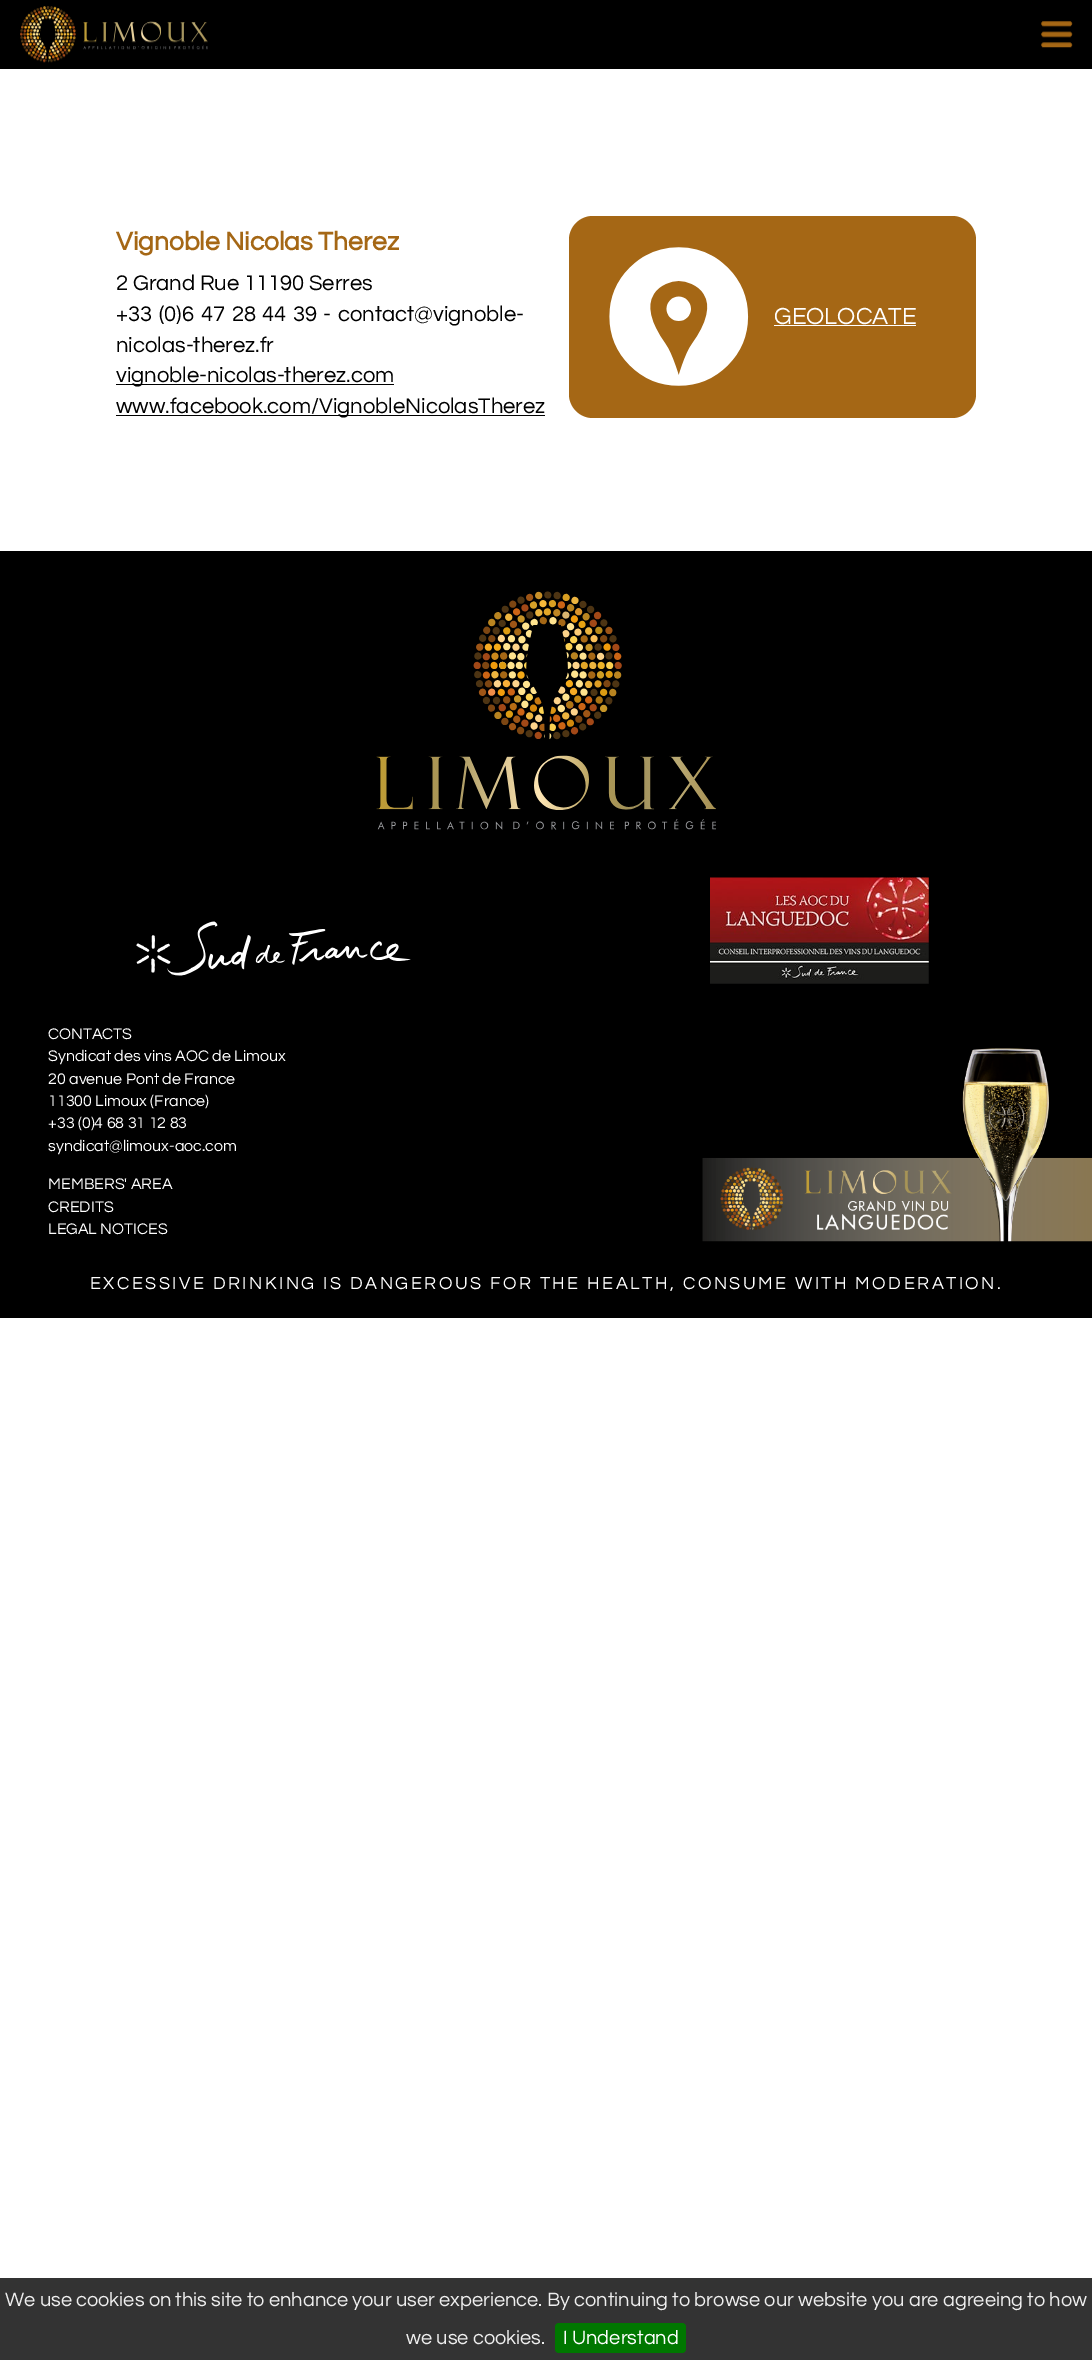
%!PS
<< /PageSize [1092 2360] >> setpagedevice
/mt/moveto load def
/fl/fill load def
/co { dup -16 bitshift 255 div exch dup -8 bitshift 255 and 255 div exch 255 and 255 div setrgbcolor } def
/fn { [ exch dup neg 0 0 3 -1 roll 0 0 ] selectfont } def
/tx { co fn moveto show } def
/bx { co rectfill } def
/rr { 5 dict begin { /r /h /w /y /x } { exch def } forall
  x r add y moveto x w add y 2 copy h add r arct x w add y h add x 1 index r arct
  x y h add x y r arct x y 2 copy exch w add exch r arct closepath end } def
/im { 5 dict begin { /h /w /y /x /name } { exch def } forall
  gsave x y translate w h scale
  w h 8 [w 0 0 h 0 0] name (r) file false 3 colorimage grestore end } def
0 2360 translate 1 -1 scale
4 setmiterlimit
0 0 1092 2360 16#FFFFFF bx
0 0 1092 69 16#000000 bx
(media/1.raw) 20 6 188 57 im
(media/2.raw) 1041 21 32 27 im
116 384 278 1 16#000000 bx
116 415 429 1 16#000000 bx
16#A56715 co
569 216 407 202 24 rr fl
(media/3.raw) 609 247 140 139 im
774 325 142 1 16#FFFFFF bx
0 551 1092 767 16#000000 bx
(media/4.raw) 376 591 340 239 im
(media/5.raw) 136 921 275 55 im
(media/6.raw) 710 877 219 107 im
(media/7.raw) 702 1048 390 194 im
0 2278 1092 82 16#333333 bx
16#007700 co
555 2323 131 30 4 rr fl
(Vignoble Nicolas Therez) 116 250 /Questrial-Bold 26.4 16#A56715 tx
(2 Grand Rue 11190 Serres) 116 290 /Questrial-Regular 22 16#000000 tx
116 321 mt 2 0 32 (+33 \(0\)6 47 28 44 39) widthshow
(-) 323 321 /Questrial-Regular 22 16#000000 tx
(contact@vignoble-) 338 321 /Questrial-Regular 22 16#000000 tx
(nicolas-therez.fr) 116 352 /Questrial-Regular 22 16#000000 tx
(vignoble-nicolas-therez.com) 116 382 /Questrial-Regular 22 16#000000 tx
(www.facebook.com/VignobleNicolasTherez) 116 413 /Questrial-Regular 22 16#000000 tx
(GEOLOCATE) 774 324 /Questrial-Regular 24.25 16#FFFFFF tx
(CONTACTS) 48 1039 /Questrial-Regular 16 16#FFFFFF tx
(Syndicat des vins AOC de Limoux) 48 1061 /Questrial-Regular 16 16#FFFFFF tx
(20 avenue Pont de France) 48 1084 /Questrial-Regular 16 16#FFFFFF tx
(11300 Limoux \(France\)) 48 1106 /Questrial-Regular 16 16#FFFFFF tx
(+33 \(0\)4 68 31 12 83) 48 1128 /Questrial-Regular 16 16#FFFFFF tx
(syndicat@limoux-aoc.com) 48 1151 /Questrial-Regular 16 16#FFFFFF tx
(MEMBERS' AREA) 48 1189 /Questrial-Regular 16 16#FFFFFF tx
(CREDITS) 48 1212 /Questrial-Regular 16 16#FFFFFF tx
(LEGAL NOTICES) 48 1234 /Questrial-Regular 16 16#FFFFFF tx
/Questrial-Regular 18 fn
90 1289 mt 2.5 0 (EXCESSIVE DRINKING IS DANGEROUS FOR THE HEALTH, CONSUME WITH MODERATION.) ashow
(We use cookies on this site to enhance your user experience. By continuing to browse our website you are agreeing to how) 5 2306 /Questrial-Regular 20 16#EEEEEE tx
(we use cookies.) 406 2344 /Questrial-Regular 20 16#EEEEEE tx
(I Understand) 563 2344 /Questrial-Regular 20 16#FFFFFF tx
showpage
